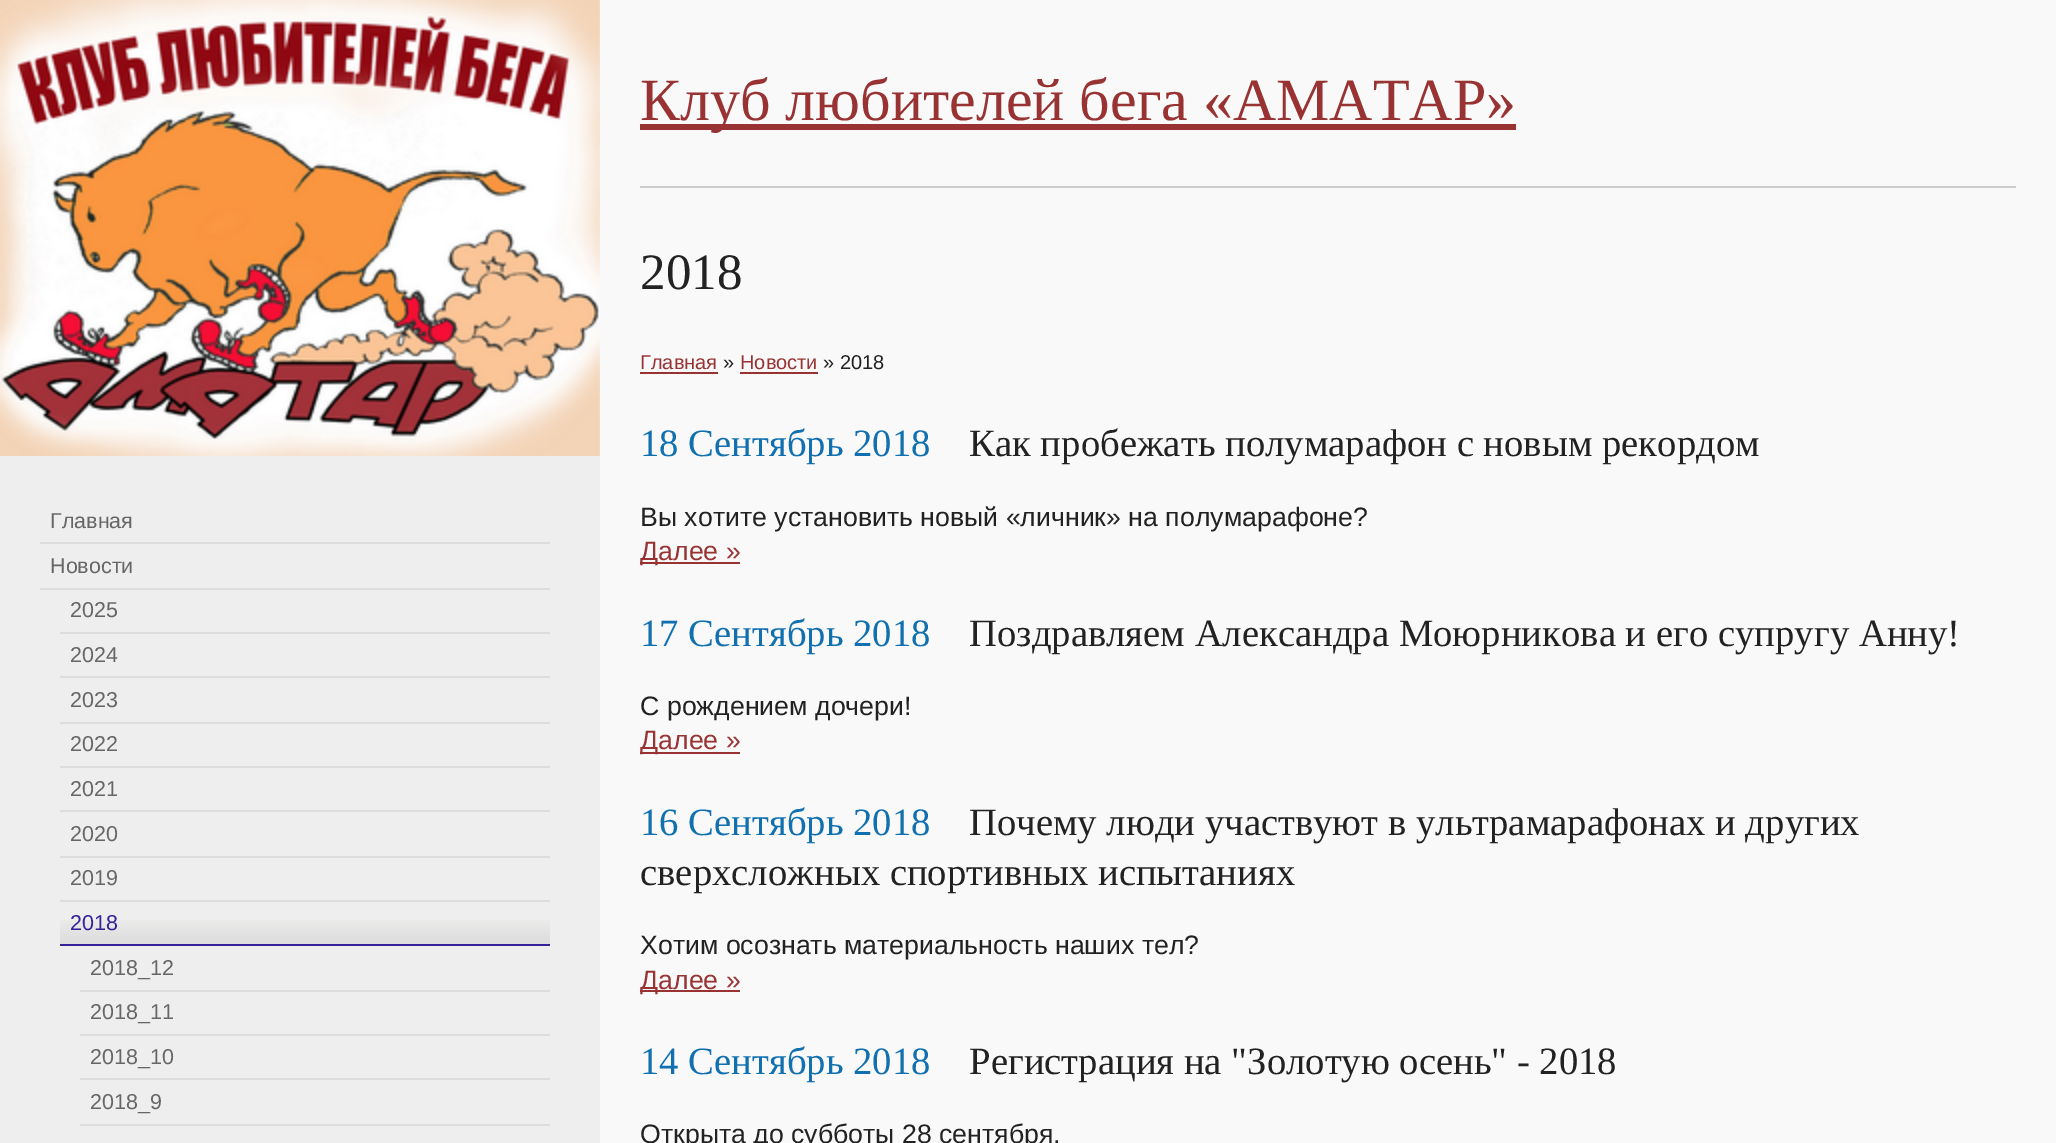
%!PS
<< /PageSize [2056 1143] >> setpagedevice
/co { dup -16 bitshift 255 div exch dup -8 bitshift 255 and 255 div exch 255 and 255 div setrgbcolor } def
/fn { [ exch dup neg 0 0 3 -1 roll 0 0 ] selectfont } def
/tx { co fn moveto show } def
/bx { co rectfill } def
/im { 5 dict begin { /h /w /y /x /name } { exch def } forall
  gsave x y translate w h scale
  w h 8 [w 0 0 h 0 0] name (r) file false 3 colorimage grestore end } def
0 1143 translate 1 -1 scale
4 setmiterlimit
0 0 2056 1143 16#F9F9F9 bx
0 456 600 687 16#EEEEEE bx
(media/1.raw) 0 0 600 456 im
40 542 510 2 16#DDDDDD bx
40 588 510 2 16#DDDDDD bx
60 632 490 2 16#DDDDDD bx
60 676 490 2 16#DDDDDD bx
60 722 490 2 16#DDDDDD bx
60 766 490 2 16#DDDDDD bx
60 810 490 2 16#DDDDDD bx
60 856 490 2 16#DDDDDD bx
60 900 490 2 16#DDDDDD bx
(media/2.raw) 60 920 490 24 im
60 944 490 2 16#332299 bx
80 990 470 2 16#DDDDDD bx
80 1034 470 2 16#DDDDDD bx
80 1078 470 2 16#DDDDDD bx
80 1124 470 2 16#DDDDDD bx
640 124 876 6 16#993333 bx
640 186 1376 2 16#CCCCCC bx
640 372 78 2 16#993333 bx
740 372 78 2 16#993333 bx
640 562 100 2 16#993333 bx
640 752 100 2 16#993333 bx
640 990 100 2 16#993333 bx
(Главная) 50 528 /LiberationSans-Regular 21.5 16#666666 tx
(Новости) 50 573 /LiberationSans-Regular 21.5 16#666666 tx
(2025) 70 617 /LiberationSans-Regular 21.5 16#666666 tx
(2024) 70 662 /LiberationSans-Regular 21.5 16#666666 tx
(2023) 70 707 /LiberationSans-Regular 21.5 16#666666 tx
(2022) 70 751 /LiberationSans-Regular 21.5 16#666666 tx
(2021) 70 796 /LiberationSans-Regular 21.5 16#666666 tx
(2020) 70 841 /LiberationSans-Regular 21.5 16#666666 tx
(2019) 70 885 /LiberationSans-Regular 21.5 16#666666 tx
(2018) 70 930 /LiberationSans-Regular 21.5 16#332299 tx
(2018_12) 90 975 /LiberationSans-Regular 21.5 16#666666 tx
(2018_11) 90 1019 /LiberationSans-Regular 21.5 16#666666 tx
(2018_10) 90 1064 /LiberationSans-Regular 21.5 16#666666 tx
(2018_9) 90 1109 /LiberationSans-Regular 21.5 16#666666 tx
(Клуб любителей бега «АМАТАР») 640 120 /LiberationSerif-Regular 60 16#993333 tx
(2018) 640 289 /LiberationSerif-Regular 51 16#222222 tx
(Главная) 640 369 /LiberationSans-Regular 20 16#993333 tx
(») 723 369 /LiberationSans-Regular 20 16#222222 tx
(Новости) 740 369 /LiberationSans-Regular 20 16#993333 tx
(» 2018) 823 369 /LiberationSans-Regular 20 16#222222 tx
(18 Сентябрь 2018) 640 456 /LiberationSerif-Regular 38.7 16#1170B0 tx
(Как пробежать полумарафон с новым рекордом) 969 456 /LiberationSerif-Regular 38.7 16#222222 tx
(Вы хотите установить новый «личник» на полумарафоне?) 640 526 /LiberationSans-Regular 26.7 16#222222 tx
(Далее ») 640 560 /LiberationSans-Regular 26.7 16#993333 tx
(17 Сентябрь 2018) 640 646 /LiberationSerif-Regular 38.7 16#1170B0 tx
(Поздравляем Александра Моюрникова и его супругу Анну!) 969 646 /LiberationSerif-Regular 38.7 16#222222 tx
(С рождением дочери!) 640 715 /LiberationSans-Regular 26.7 16#222222 tx
(Далее ») 640 749 /LiberationSans-Regular 26.7 16#993333 tx
(16 Сентябрь 2018) 640 835 /LiberationSerif-Regular 38.7 16#1170B0 tx
(Почему люди участвуют в ультрамарафонах и других) 969 835 /LiberationSerif-Regular 38.7 16#222222 tx
(сверхсложных спортивных испытаниях) 640 885 /LiberationSerif-Regular 38.7 16#222222 tx
(Хотим осознать материальность наших тел?) 640 954 /LiberationSans-Regular 26.7 16#222222 tx
(Далее ») 640 989 /LiberationSans-Regular 26.7 16#993333 tx
(14 Сентябрь 2018) 640 1074 /LiberationSerif-Regular 38.7 16#1170B0 tx
(Регистрация на "Золотую осень" - 2018) 969 1074 /LiberationSerif-Regular 38.7 16#222222 tx
(Открыта до субботы 28 сентября.) 640 1143 /LiberationSans-Regular 26.7 16#222222 tx
showpage
